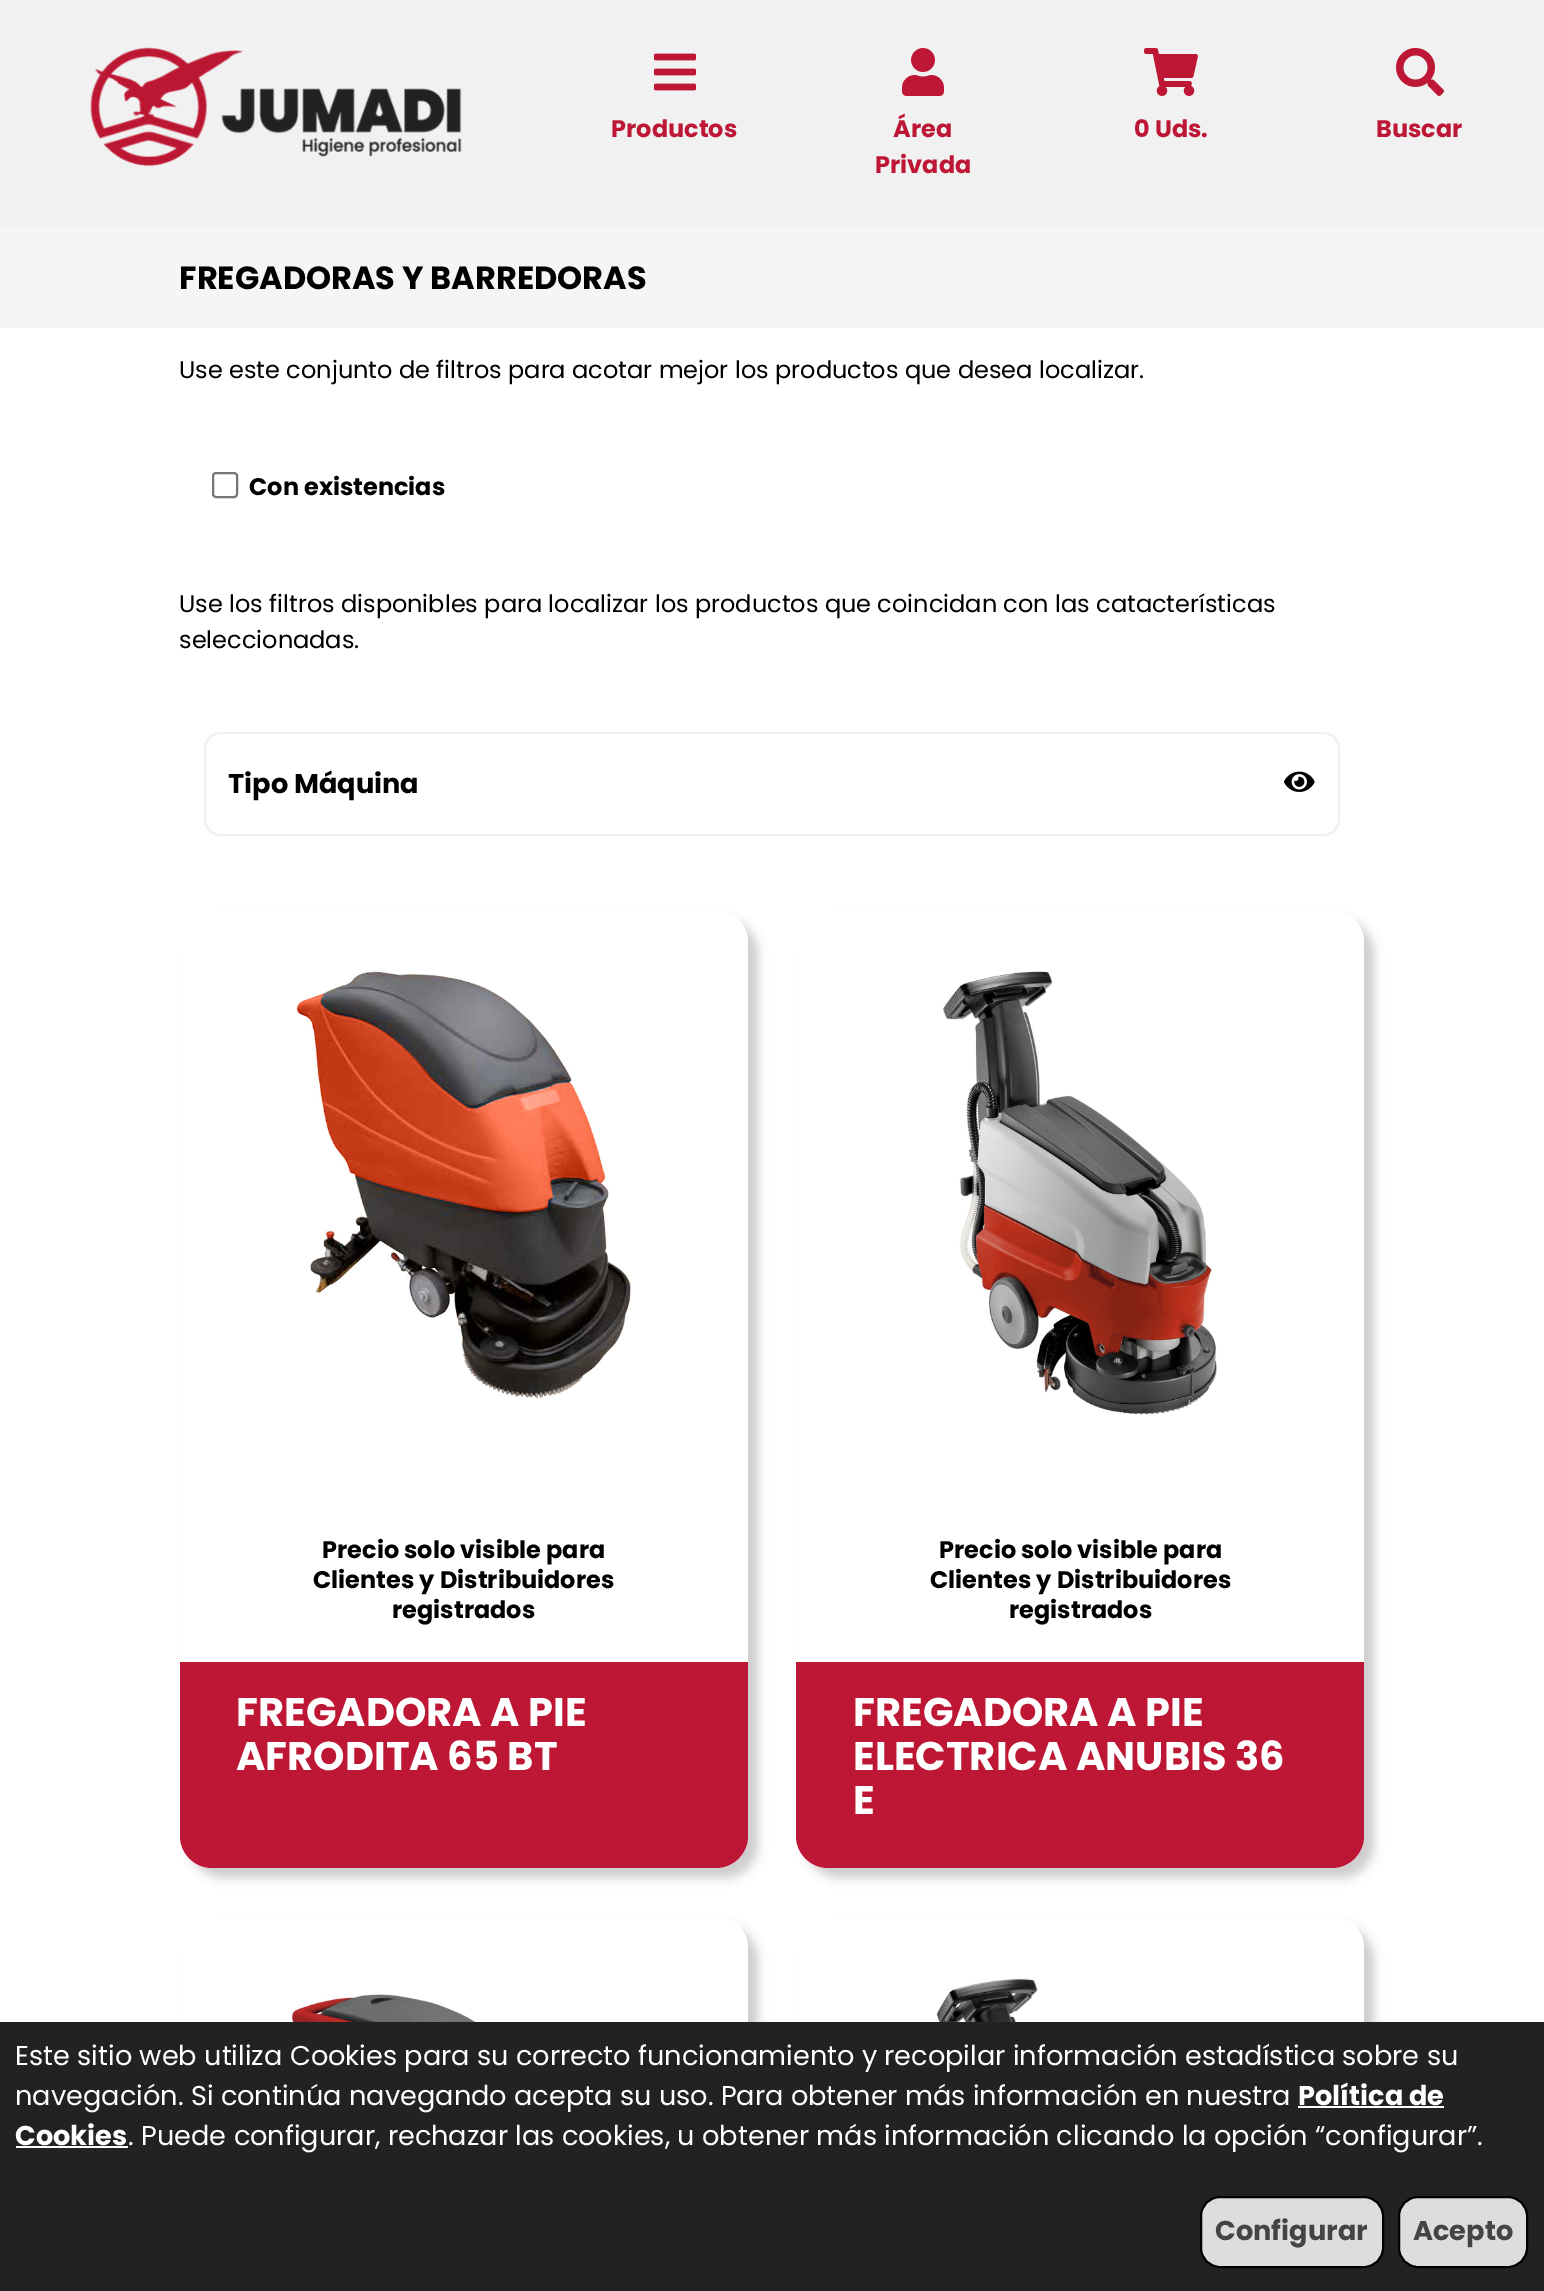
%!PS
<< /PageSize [1544 2291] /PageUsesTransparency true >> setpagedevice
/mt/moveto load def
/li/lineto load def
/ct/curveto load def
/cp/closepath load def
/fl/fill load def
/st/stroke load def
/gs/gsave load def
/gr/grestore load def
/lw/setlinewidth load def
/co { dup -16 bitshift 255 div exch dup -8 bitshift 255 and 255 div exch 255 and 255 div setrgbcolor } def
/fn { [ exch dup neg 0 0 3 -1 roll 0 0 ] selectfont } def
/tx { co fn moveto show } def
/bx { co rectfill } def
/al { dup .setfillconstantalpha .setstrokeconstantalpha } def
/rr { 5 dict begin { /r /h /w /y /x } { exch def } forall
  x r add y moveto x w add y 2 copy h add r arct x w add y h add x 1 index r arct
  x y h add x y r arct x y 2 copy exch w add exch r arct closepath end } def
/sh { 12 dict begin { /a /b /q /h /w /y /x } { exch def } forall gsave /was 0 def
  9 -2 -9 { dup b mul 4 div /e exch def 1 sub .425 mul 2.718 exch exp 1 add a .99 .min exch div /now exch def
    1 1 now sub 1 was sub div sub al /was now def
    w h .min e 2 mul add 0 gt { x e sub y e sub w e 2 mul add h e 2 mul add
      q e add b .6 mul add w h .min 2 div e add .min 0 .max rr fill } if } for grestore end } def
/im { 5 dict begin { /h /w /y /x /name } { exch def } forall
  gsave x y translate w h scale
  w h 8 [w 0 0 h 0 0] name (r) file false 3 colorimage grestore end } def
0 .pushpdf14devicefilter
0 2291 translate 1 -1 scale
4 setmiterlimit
0 0 1544 2291 16#FFFFFF bx
0 0 1544 228 16#F1F1F1 bx
(media/1.raw) 90 47 372 119 im
(media/2.raw) 654 53 42 38 im
(media/3.raw) 902 48 42 48 im
(media/4.raw) 1144 48 54 48 im
(media/5.raw) 1396 48 48 48 im
0 228 1544 100 16#F5F5F5 bx
16#767676 co
2 lw
213 473 24 24 3 rr st
16#F0F0F0 co
205 733 1134 102 15 rr st
(media/6.raw) 1284 771 31 21 im
16#CCCCCC co
190 920 568 958 32 5 1 sh
16#FFFFFF co
180 910 568 958 32 rr fl
(media/7.raw) 296 970 335 429 im
16#BE1735 co
180 1662 mt 748 1662 li 748 1836 li 748 1853.5 733.5 1868 716 1868 ct 212 1868 li 194.5 1868 180 1853.5 180 1836 ct cp fl
16#CCCCCC co
806 920 568 958 32 5 1 sh
16#FFFFFF co
796 910 568 958 32 rr fl
(media/8.raw) 943 971 274 444 im
16#BE1735 co
796 1662 mt 1364 1662 li 1364 1836 li 1364 1853.5 1349.5 1868 1332 1868 ct 828 1868 li 810.5 1868 796 1853.5 796 1836 ct cp fl
16#CCCCCC co
190 1926 568 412 32 5 1 sh
16#FFFFFF co
180 1916 568 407 32 rr fl
(media/9.raw) 291 1994 335 28 im
16#CCCCCC co
806 1926 568 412 32 5 1 sh
16#FFFFFF co
796 1916 568 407 32 rr fl
(media/10.raw) 936 1979 266 43 im
0 2022 1544 269 16#222222 bx
1298 2106 146 2 16#FFFFFF bx
16 2146 112 2 16#FFFFFF bx
16#DDDDDD co
1201 2197 182 70 19 rr gs fl gr
16#000000 co
st
16#DDDDDD co
1399 2197 128 70 19 rr gs fl gr
16#000000 co
st
(Productos) 611 137 /Poppins-Bold 24 16#BE1735 tx
(Área) 893 137 /Poppins-Bold 24 16#BE1735 tx
(Privada) 875 173 /Poppins-Bold 24 16#BE1735 tx
(0 Uds.) 1134 137 /Poppins-Bold 24 16#BE1735 tx
(Buscar) 1376 137 /Poppins-Bold 24 16#BE1735 tx
(FREGADORAS Y BARREDORAS) 179 289 /Poppins-Bold 32 16#000000 tx
(Use este conjunto de filtros para acotar mejor los productos que desea localizar.) 179 378 /Poppins-Regular 24 16#000000 tx
(Con existencias) 249 495 /Poppins-Bold 24 16#000000 tx
(Use los filtros disponibles para localizar los productos que coincidan con las catacterísticas) 179 612 /Poppins-Regular 24 16#000000 tx
(seleccionadas.) 179 648 /Poppins-Regular 24 16#000000 tx
(Tipo Máquina) 228 793 /Poppins-Bold 27.2 16#000000 tx
(Precio solo visible para) 322 1558 /Poppins-Bold 24 16#000000 tx
(Clientes y Distribuidores) 313 1588 /Poppins-Bold 24 16#000000 tx
(registrados) 392 1618 /Poppins-Bold 24 16#000000 tx
(FREGADORA A PIE) 236 1726 /Poppins-Bold 40 16#FFFFFF tx
(AFRODITA 65 BT) 236 1770 /Poppins-Bold 40 16#FFFFFF tx
(Precio solo visible para) 939 1558 /Poppins-Bold 24 16#000000 tx
(Clientes y Distribuidores) 930 1588 /Poppins-Bold 24 16#000000 tx
(registrados) 1009 1618 /Poppins-Bold 24 16#000000 tx
(FREGADORA A PIE) 853 1726 /Poppins-Bold 40 16#FFFFFF tx
(ELECTRICA ANUBIS 36) 853 1770 /Poppins-Bold 40 16#FFFFFF tx
(E) 853 1814 /Poppins-Bold 40 16#FFFFFF tx
(Este sitio web utiliza Cookies para su correcto funcionamiento y recopilar información estadística sobre su) 15 2065 /Poppins-Regular 27.2 16#FFFFFF tx
(navegación. Si continúa navegando acepta su uso. Para obtener más información en nuestra) 15 2105 /Poppins-Regular 27.2 16#FFFFFF tx
(Política de) 1298 2105 /Poppins-Bold 27.2 16#FFFFFF tx
(Cookies) 15 2145 /Poppins-Bold 27.2 16#FFFFFF tx
(. Puede configurar, rechazar las cookies, u obtener más información clicando la opción “configurar”.) 128 2145 /Poppins-Regular 27.2 16#FFFFFF tx
(Configurar) 1215 2240 /Poppins-Bold 27.2 16#444444 tx
(Acepto) 1413 2240 /Poppins-Bold 27.2 16#444444 tx
.poppdf14devicefilter showpage
